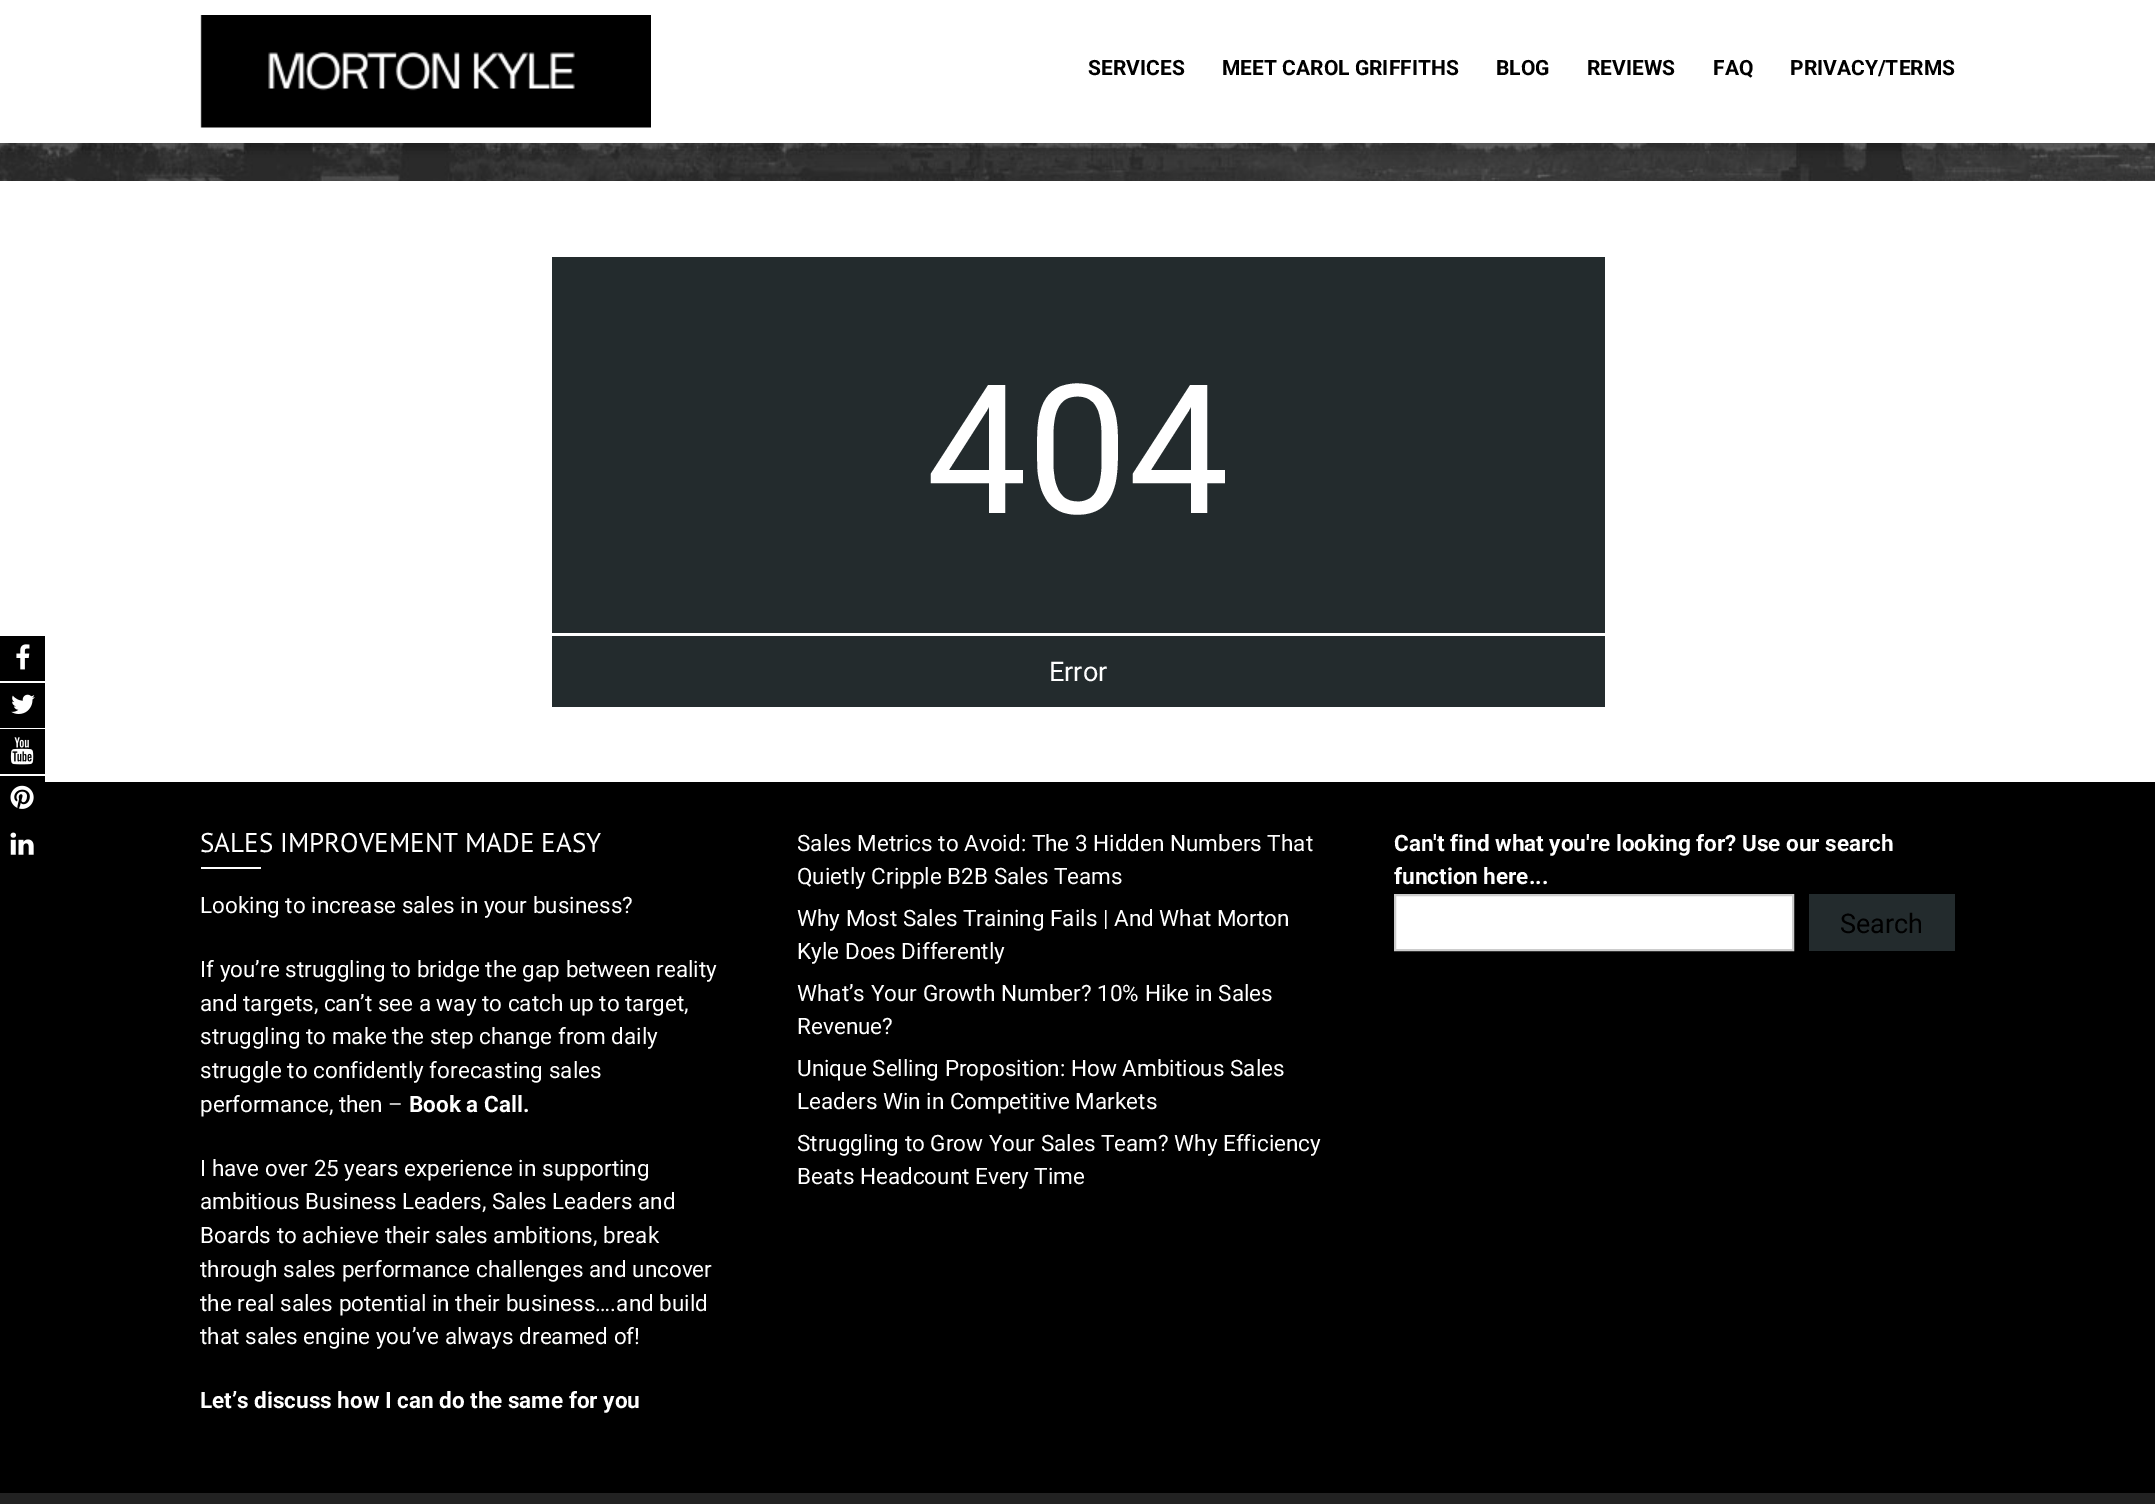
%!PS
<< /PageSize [2155 1504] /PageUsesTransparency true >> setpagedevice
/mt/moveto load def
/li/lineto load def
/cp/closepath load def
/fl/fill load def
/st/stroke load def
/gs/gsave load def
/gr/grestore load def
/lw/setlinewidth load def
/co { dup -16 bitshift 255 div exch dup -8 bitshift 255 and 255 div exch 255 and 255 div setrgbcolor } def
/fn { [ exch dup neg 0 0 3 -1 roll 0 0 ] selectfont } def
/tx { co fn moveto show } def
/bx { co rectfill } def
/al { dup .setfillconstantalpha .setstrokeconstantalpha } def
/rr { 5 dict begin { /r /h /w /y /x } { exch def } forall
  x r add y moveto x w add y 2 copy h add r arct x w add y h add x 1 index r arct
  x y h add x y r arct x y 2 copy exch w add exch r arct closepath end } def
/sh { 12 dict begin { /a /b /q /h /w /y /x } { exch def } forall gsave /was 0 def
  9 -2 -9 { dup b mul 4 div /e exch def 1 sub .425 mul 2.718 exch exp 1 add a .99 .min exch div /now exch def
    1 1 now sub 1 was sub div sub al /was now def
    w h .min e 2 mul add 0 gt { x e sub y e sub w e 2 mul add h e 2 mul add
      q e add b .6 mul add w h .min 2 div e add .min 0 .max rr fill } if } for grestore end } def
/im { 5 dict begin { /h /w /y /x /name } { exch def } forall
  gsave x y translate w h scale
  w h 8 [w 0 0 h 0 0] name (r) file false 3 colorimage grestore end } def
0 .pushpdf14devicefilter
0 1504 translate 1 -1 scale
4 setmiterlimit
0 0 2155 1504 16#FFFFFF bx
(media/7.raw) 0 143 2155 38 im
16#000000 co
0 6 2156 143 0 7.5 .3 sh
0 0 2155 143 16#FFFFFF bx
(media/1.raw) 200 15 451 113 im
0 636 45 45 16#000000 bx
(media/2.raw) 16 644 14 26 im
0 683 45 45 16#000000 bx
(media/3.raw) 11 694 24 20 im
0 729 45 45 16#000000 bx
(media/4.raw) 10 737 24 28 im
0 776 45 6 16#000000 bx
0 782 2155 711 16#000000 bx
(media/5.raw) 10 785 24 24 im
(media/6.raw) 10 832 24 23 im
552 257 1053 450 16#232B2D bx
552 633 1053 3 16#FFFFFF bx
201 867 60 2 16#FFFFFF bx
1395 895 mt 1793 895 li 1793 950 li 1395 950 li cp gs fl gr
16#CCCCCC co
2 lw
st
1809 894 146 57 16#232B2D bx
0 1493 2155 11 16#222222 bx
(SERVICES) 1088 75 /Roboto-Bold 21 16#000000 tx
(MEET CAROL GRIFFITHS) 1222 75 /Roboto-Bold 21 16#000000 tx
(BLOG) 1496 75 /Roboto-Bold 21 16#000000 tx
(REVIEWS) 1587 75 /Roboto-Bold 21 16#000000 tx
(FAQ) 1713 75 /Roboto-Bold 21 16#000000 tx
(PRIVACY/TERMS) 1790 75 /Roboto-Bold 21 16#000000 tx
(404) 926 513 /Roboto-Regular 180 16#FFFFFF tx
(Error) 1049 681 /Roboto-Regular 27 16#FFFFFF tx
(SALES IMPROVEMENT MADE EASY) 200 852 /PTSans-Regular 27 16#FFFFFF tx
(Looking to increase sales in your business?) 200 913 /Roboto-Regular 22.5 16#FFFFFF tx
(If you’re struggling to bridge the gap between reality) 200 977 /Roboto-Regular 22.5 16#FFFFFF tx
(and targets, can’t see a way to catch up to target,) 200 1011 /Roboto-Regular 22.5 16#FFFFFF tx
(struggling to make the step change from daily) 200 1044 /Roboto-Regular 22.5 16#FFFFFF tx
(struggle to confidently forecasting sales) 200 1078 /Roboto-Regular 22.5 16#FFFFFF tx
(performance, then –) 200 1112 /Roboto-Regular 22.5 16#FFFFFF tx
(Book a Call.) 409 1112 /Roboto-Bold 22.5 16#FFFFFF tx
(I have over 25 years experience in supporting) 200 1176 /Roboto-Regular 22.5 16#FFFFFF tx
(ambitious Business Leaders, Sales Leaders and) 200 1209 /Roboto-Regular 22.5 16#FFFFFF tx
(Boards to achieve their sales ambitions, break) 200 1243 /Roboto-Regular 22.5 16#FFFFFF tx
(through sales performance challenges and uncover) 200 1277 /Roboto-Regular 22.5 16#FFFFFF tx
(the real sales potential in their business….and build) 200 1311 /Roboto-Regular 22.5 16#FFFFFF tx
(that sales engine you’ve always dreamed of!) 200 1344 /Roboto-Regular 22.5 16#FFFFFF tx
(Let’s discuss how I can do the same for you) 200 1408 /Roboto-Bold 22.5 16#FFFFFF tx
(Sales Metrics to Avoid: The 3 Hidden Numbers That) 797 851 /Roboto-Regular 22.5 16#FFFFFF tx
(Quietly Cripple B2B Sales Teams) 797 884 /Roboto-Regular 22.5 16#FFFFFF tx
(Why Most Sales Training Fails | And What Morton) 797 926 /Roboto-Regular 22.5 16#FFFFFF tx
(Kyle Does Differently) 797 959 /Roboto-Regular 22.5 16#FFFFFF tx
(What’s Your Growth Number? 10% Hike in Sales) 797 1001 /Roboto-Regular 22.5 16#FFFFFF tx
(Revenue?) 797 1034 /Roboto-Regular 22.5 16#FFFFFF tx
(Unique Selling Proposition: How Ambitious Sales) 797 1076 /Roboto-Regular 22.5 16#FFFFFF tx
(Leaders Win in Competitive Markets) 797 1109 /Roboto-Regular 22.5 16#FFFFFF tx
(Struggling to Grow Your Sales Team? Why Efficiency) 797 1151 /Roboto-Regular 22.5 16#FFFFFF tx
(Beats Headcount Every Time) 797 1184 /Roboto-Regular 22.5 16#FFFFFF tx
(Can't find what you're looking for? Use our search) 1394 851 /Roboto-Bold 22.5 16#FFFFFF tx
(function here...) 1394 884 /Roboto-Bold 22.5 16#FFFFFF tx
(Search) 1840 933 /Roboto-Regular 27 16#000000 tx
.poppdf14devicefilter showpage
